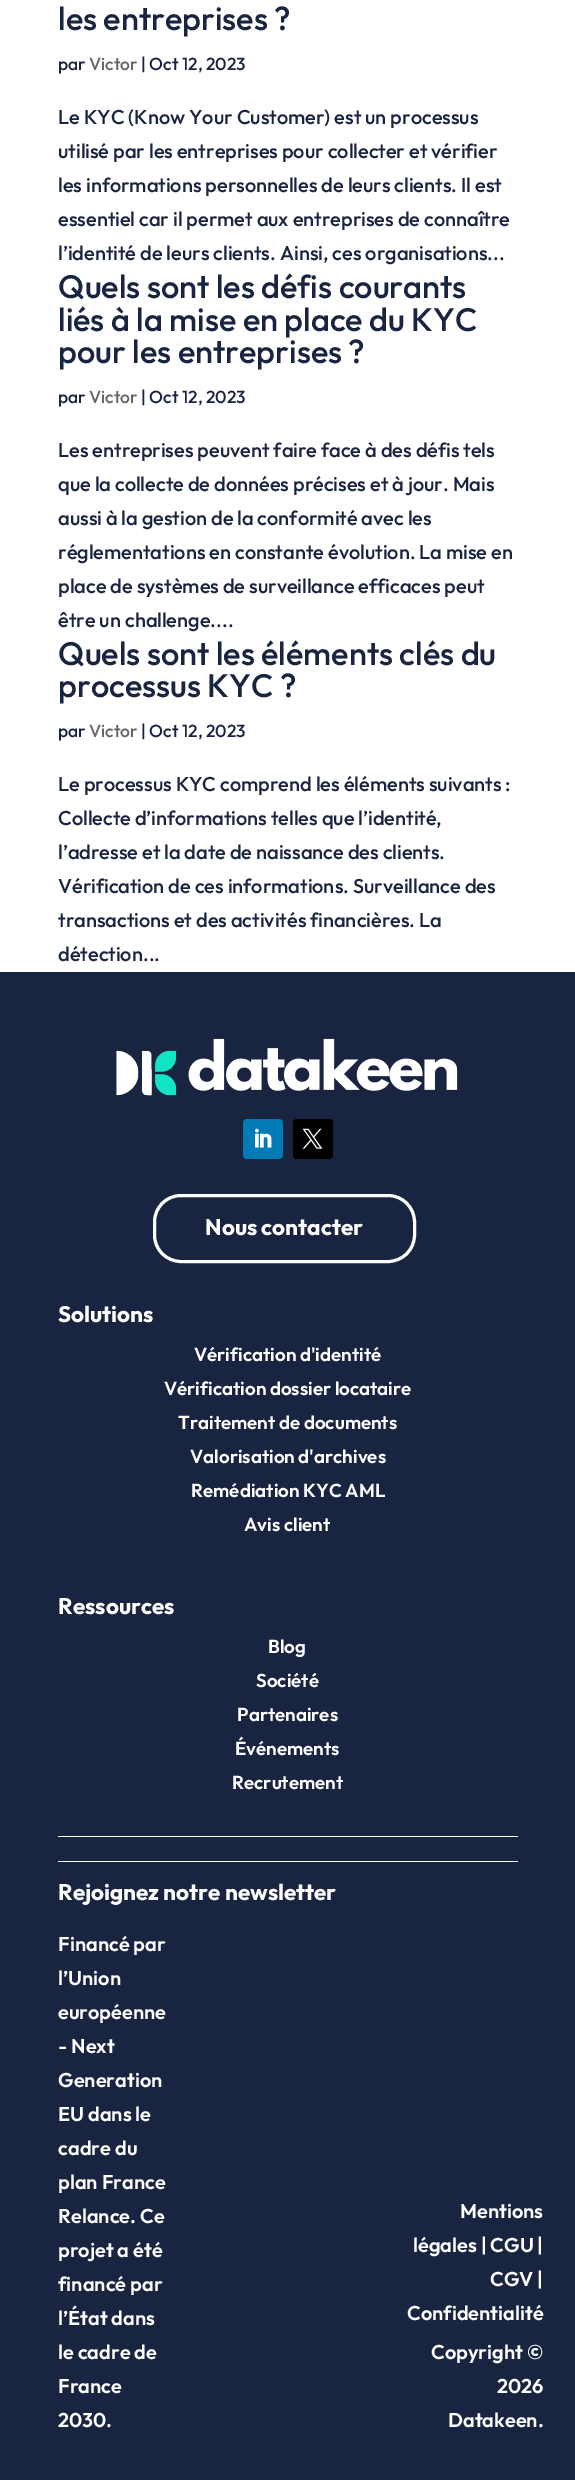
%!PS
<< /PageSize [575 2480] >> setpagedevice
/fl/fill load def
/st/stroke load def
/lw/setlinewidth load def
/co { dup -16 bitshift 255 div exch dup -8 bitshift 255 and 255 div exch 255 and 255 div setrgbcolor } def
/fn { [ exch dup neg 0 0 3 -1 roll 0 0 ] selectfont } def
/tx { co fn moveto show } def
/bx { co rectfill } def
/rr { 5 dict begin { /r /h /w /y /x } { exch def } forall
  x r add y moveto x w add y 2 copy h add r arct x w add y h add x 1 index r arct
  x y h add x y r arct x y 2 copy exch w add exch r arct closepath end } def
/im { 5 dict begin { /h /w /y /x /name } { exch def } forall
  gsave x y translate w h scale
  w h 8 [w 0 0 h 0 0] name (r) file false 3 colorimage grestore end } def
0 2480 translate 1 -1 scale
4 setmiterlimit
0 0 575 2480 16#FFFFFF bx
0 972 575 1508 16#192441 bx
(media/1.raw) 116 1038 342 58 im
16#007BB6 co
243 1119 40 40 4 rr fl
(media/2.raw) 255 1128 17 20 im
16#000000 co
293 1119 40 40 4 rr fl
(media/3.raw) 302 1128 21 21 im
16#FFFFFF co
3 lw
154.5 1195.5 260 66 26.5 rr st
58 1836 460 1 16#FFFFFF bx
58 1861 460 1 16#FFFFFF bx
(les entreprises ?) 58 30 /Outfit-Thin 32.5 16#192441 tx
(par) 58 70 /Outfit-Thin 17.5 16#192441 tx
(Victor) 89 70 /Outfit-Thin 17.5 16#666666 tx
(| Oct 12, 2023) 141 70 /Outfit-Thin 17.5 16#192441 tx
(Le KYC \(Know Your Customer\) est un processus) 58 124 /Outfit-Thin 20 16#192441 tx
(utilisé par les entreprises pour collecter et vérifier) 58 158 /Outfit-Thin 20 16#192441 tx
(les informations personnelles de leurs clients. Il est) 58 192 /Outfit-Thin 20 16#192441 tx
(essentiel car il permet aux entreprises de connaître) 58 226 /Outfit-Thin 20 16#192441 tx
(l’identité de leurs clients. Ainsi, ces organisations...) 58 260 /Outfit-Thin 20 16#192441 tx
(Quels sont les défis courants) 58 298 /Outfit-Thin 32.5 16#192441 tx
(liés à la mise en place du KYC) 58 331 /Outfit-Thin 32.5 16#192441 tx
(pour les entreprises ?) 58 363 /Outfit-Thin 32.5 16#192441 tx
(par) 58 403 /Outfit-Thin 17.5 16#192441 tx
(Victor) 89 403 /Outfit-Thin 17.5 16#666666 tx
(| Oct 12, 2023) 141 403 /Outfit-Thin 17.5 16#192441 tx
(Les entreprises peuvent faire face à des défis tels) 58 457 /Outfit-Thin 20 16#192441 tx
(que la collecte de données précises et à jour. Mais) 58 491 /Outfit-Thin 20 16#192441 tx
(aussi à la gestion de la conformité avec les) 58 525 /Outfit-Thin 20 16#192441 tx
(réglementations en constante évolution. La mise en) 58 559 /Outfit-Thin 20 16#192441 tx
(place de systèmes de surveillance efficaces peut) 58 593 /Outfit-Thin 20 16#192441 tx
(être un challenge....) 58 627 /Outfit-Thin 20 16#192441 tx
(Quels sont les éléments clés du) 58 665 /Outfit-Thin 32.5 16#192441 tx
(processus KYC ?) 58 697 /Outfit-Thin 32.5 16#192441 tx
(par) 58 737 /Outfit-Thin 17.5 16#192441 tx
(Victor) 89 737 /Outfit-Thin 17.5 16#666666 tx
(| Oct 12, 2023) 141 737 /Outfit-Thin 17.5 16#192441 tx
(Le processus KYC comprend les éléments suivants :) 58 791 /Outfit-Thin 20 16#192441 tx
(Collecte d’informations telles que l’identité,) 58 825 /Outfit-Thin 20 16#192441 tx
(l’adresse et la date de naissance des clients.) 58 859 /Outfit-Thin 20 16#192441 tx
(Vérification de ces informations. Surveillance des) 58 893 /Outfit-Thin 20 16#192441 tx
(transactions et des activités financières. La) 58 927 /Outfit-Thin 20 16#192441 tx
(détection...) 58 961 /Outfit-Thin 20 16#192441 tx
(Nous contacter) 205 1235 /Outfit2-Thin 22.5 16#FFFFFF tx
(Solutions) 58 1322 /Outfit2-Thin 22.5 16#FFFFFF tx
(Vérification d'identité) 194 1361 /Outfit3-Thin 18.75 16#FFFFFF tx
(Vérification dossier locataire) 164 1395 /Outfit3-Thin 18.75 16#FFFFFF tx
(Traitement de documents) 178 1429 /Outfit3-Thin 18.75 16#FFFFFF tx
(Valorisation d'archives) 190 1463 /Outfit3-Thin 18.75 16#FFFFFF tx
(Remédiation KYC AML) 191 1497 /Outfit3-Thin 18.75 16#FFFFFF tx
(Avis client) 244 1531 /Outfit3-Thin 18.75 16#FFFFFF tx
(Ressources) 58 1614 /Outfit2-Thin 22.5 16#FFFFFF tx
(Blog) 268 1653 /Outfit3-Thin 18.75 16#FFFFFF tx
(Société) 256 1687 /Outfit3-Thin 18.75 16#FFFFFF tx
(Partenaires) 237 1721 /Outfit3-Thin 18.75 16#FFFFFF tx
(Événements) 235 1755 /Outfit3-Thin 18.75 16#FFFFFF tx
(Recrutement) 232 1789 /Outfit3-Thin 18.75 16#FFFFFF tx
(Rejoignez notre newsletter) 58 1900 /Outfit2-Thin 22.5 16#FFFFFF tx
(Financé par) 58 1951 /Outfit3-Thin 20 16#FFFFFF tx
(l’Union) 58 1985 /Outfit3-Thin 20 16#FFFFFF tx
(européenne) 58 2019 /Outfit3-Thin 20 16#FFFFFF tx
(- Next) 58 2053 /Outfit3-Thin 20 16#FFFFFF tx
(Generation) 58 2087 /Outfit3-Thin 20 16#FFFFFF tx
(EU dans le) 58 2121 /Outfit3-Thin 20 16#FFFFFF tx
(cadre du) 58 2155 /Outfit3-Thin 20 16#FFFFFF tx
(plan France) 58 2189 /Outfit3-Thin 20 16#FFFFFF tx
(Relance. Ce) 58 2223 /Outfit3-Thin 20 16#FFFFFF tx
(projet a été) 58 2257 /Outfit3-Thin 20 16#FFFFFF tx
(financé par) 58 2291 /Outfit3-Thin 20 16#FFFFFF tx
(l’État dans) 58 2325 /Outfit3-Thin 20 16#FFFFFF tx
(le cadre de) 58 2359 /Outfit3-Thin 20 16#FFFFFF tx
(France) 58 2393 /Outfit3-Thin 20 16#FFFFFF tx
(2030.) 58 2427 /Outfit3-Thin 20 16#FFFFFF tx
(Mentions) 460 2218 /Outfit3-Thin 20 16#FFFFFF tx
(légales | CGU |) 413 2252 /Outfit3-Thin 20 16#FFFFFF tx
(CGV |) 490 2286 /Outfit3-Thin 20 16#FFFFFF tx
(Confidentialité) 407 2320 /Outfit3-Thin 20 16#FFFFFF tx
(Copyright ©) 431 2359 /Outfit3-Thin 20 16#FFFFFF tx
(2026) 497 2393 /Outfit3-Thin 20 16#FFFFFF tx
(Datakeen.) 448 2427 /Outfit3-Thin 20 16#FFFFFF tx
showpage
